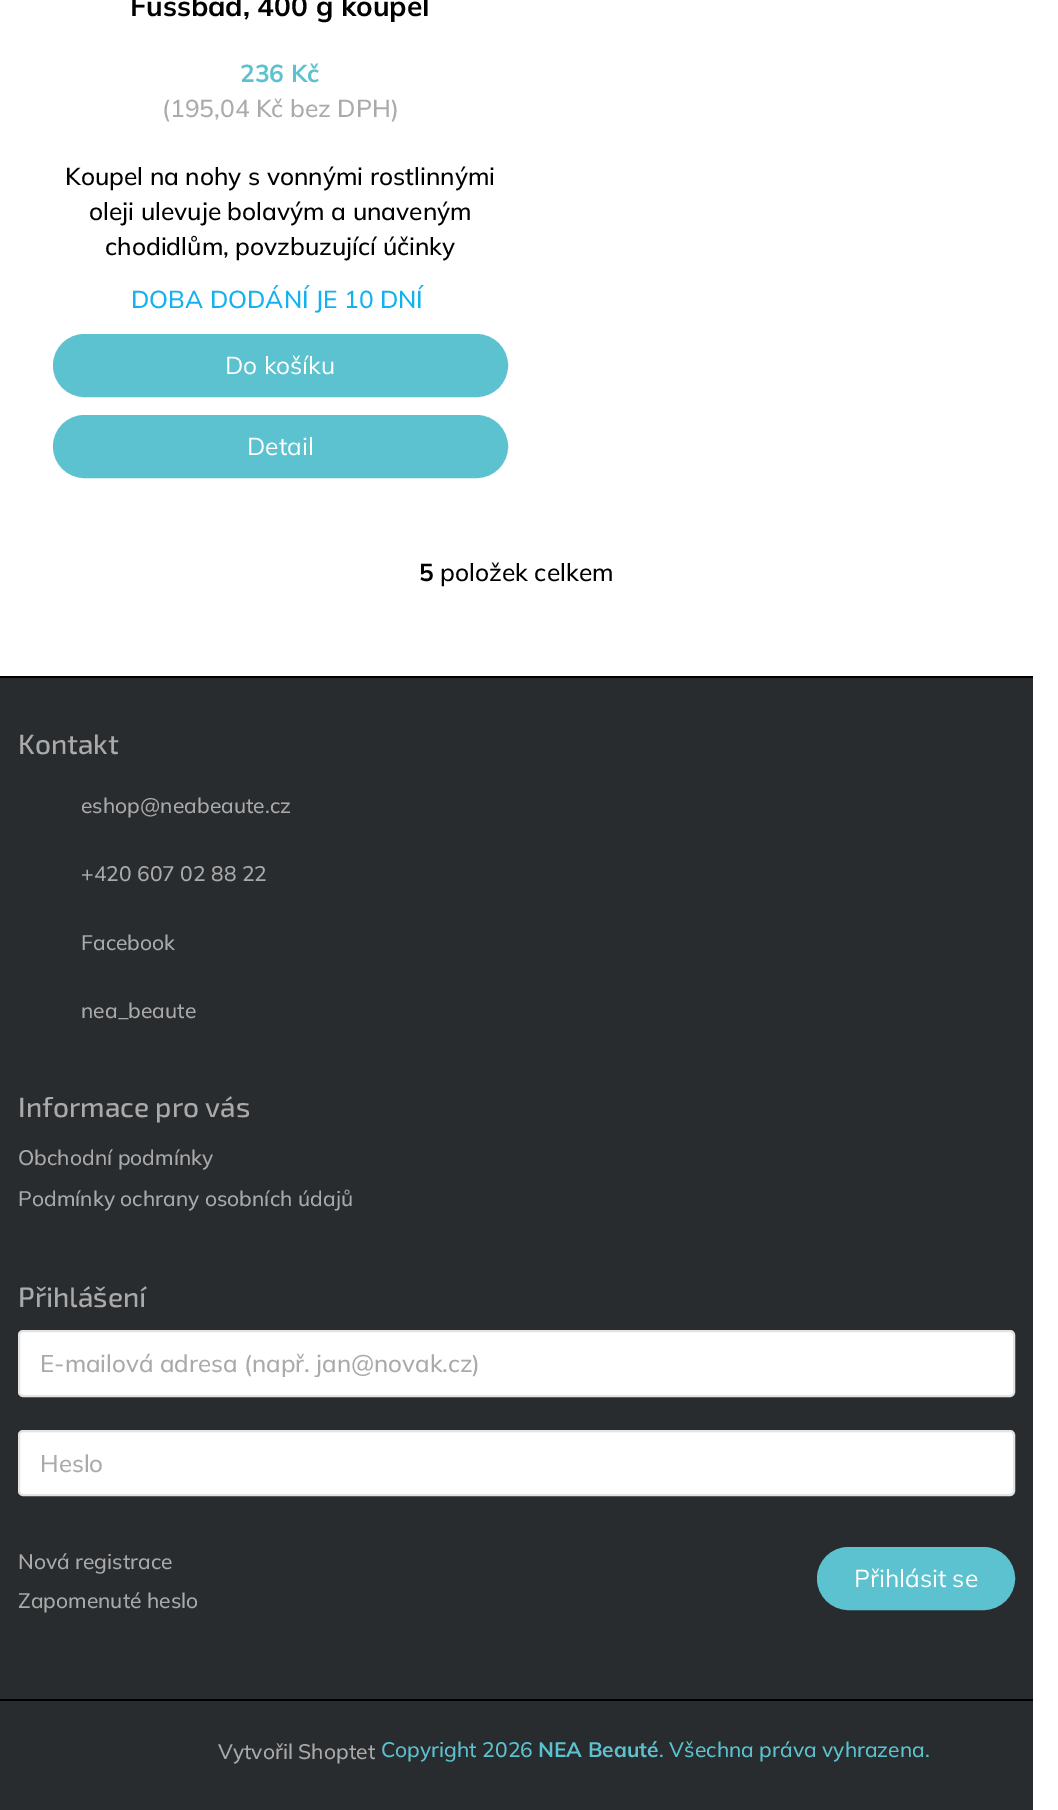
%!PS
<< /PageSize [1058 1810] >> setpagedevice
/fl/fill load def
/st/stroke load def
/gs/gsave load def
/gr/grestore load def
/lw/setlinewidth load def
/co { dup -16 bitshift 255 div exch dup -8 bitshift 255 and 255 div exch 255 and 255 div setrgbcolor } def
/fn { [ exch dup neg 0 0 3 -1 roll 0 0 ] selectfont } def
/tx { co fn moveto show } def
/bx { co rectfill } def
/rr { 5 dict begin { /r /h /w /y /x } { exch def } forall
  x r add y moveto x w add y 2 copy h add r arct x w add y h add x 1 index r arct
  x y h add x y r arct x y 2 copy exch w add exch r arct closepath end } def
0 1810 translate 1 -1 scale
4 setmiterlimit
0 0 1058 1810 16#FFFFFF bx
16#5DC2D0 co
54 335 453 61 30.5 rr gs fl gr
2 lw
st
54 416 453 61 30.5 rr gs fl gr
st
0 678 1033 1132 16#292C2F bx
0 676 1033 2 16#000000 bx
16#FFFFFF co
19 1331 995 65 4 rr gs fl gr
16#E3E3E3 co
st
16#FFFFFF co
19 1431 995 64 4 rr gs fl gr
16#E3E3E3 co
st
16#5DC2D0 co
818 1548 196 61 30.5 rr gs fl gr
st
0 1699 1033 2 16#000000 bx
(Fussbad, 400 g koupel) 130 16 /Mulish-Bold 28 16#000000 tx
(236 Kč) 240 82 /Mulish-Bold 24.5 16#5DC2D0 tx
(\(195,04 Kč bez DPH\)) 162 117 /Mulish-Medium 24.5 16#AAAAAA tx
(Koupel na nohy s vonnými rostlinnými) 65 185 /Mulish-Medium 24.5 16#000000 tx
(oleji ulevuje bolavým a unaveným) 89 220 /Mulish-Medium 24.5 16#000000 tx
(chodidlům, povzbuzující účinky) 105 255 /Mulish-Medium 24.5 16#000000 tx
(DOBA DODÁNÍ JE 10 DNÍ) 131 308 /Mulish-Medium 24.5 16#14B1EF tx
(Do košíku) 225 374 /Mulish-Regular 24.5 16#FFFFFF tx
(Detail) 247 455 /Mulish-Regular 24.5 16#FFFFFF tx
(5) 419 581 /Mulish-Bold 24.5 16#000000 tx
(položek celkem) 440 581 /Mulish-Medium 24.5 16#000000 tx
(Kontakt) 18 754 /Exo2-Medium 28 16#AAAAAA tx
(eshop@neabeaute.cz) 81 813 /Mulish-Medium 21 16#AAAAAA tx
(+420 607 02 88 22) 81 881 /Mulish-Medium 21 16#AAAAAA tx
(Facebook) 81 950 /Mulish-Medium 21 16#AAAAAA tx
(nea_beaute) 81 1018 /Mulish-Medium 21 16#AAAAAA tx
(Informace pro vás) 18 1117 /Exo2-Medium 28 16#AAAAAA tx
(Obchodní podmínky) 18 1165 /Mulish-Medium 21 16#AAAAAA tx
(Podmínky ochrany osobních údajů) 18 1206 /Mulish-Medium 21 16#AAAAAA tx
(Přihlášení) 18 1307 /Exo2-Medium 28 16#AAAAAA tx
gs
40 1348 952 29 rectclip
(E-mailová adresa \(např. jan@novak.cz\)) 40 1372 /Mulish-Medium 24.1 16#AAAAAA tx
gr
(Heslo) 40 1472 /Mulish-Medium 24.1 16#AAAAAA tx
(Nová registrace) 18 1569 /Mulish-Medium 21 16#AAAAAA tx
(Zapomenuté heslo) 18 1608 /Mulish-Medium 21 16#AAAAAA tx
(Přihlásit se) 854 1587 /Mulish-Regular 24.5 16#FFFFFF tx
(Vytvořil Shoptet) 218 1759 /Mulish-Medium 21 16#AAAAAA tx
(Copyright 2026) 381 1757 /Mulish-Medium 21 16#5DC2D0 tx
(NEA Beauté) 538 1757 /Mulish-Bold 21 16#5DC2D0 tx
(. Všechna práva vyhrazena.) 659 1757 /Mulish-Medium 21 16#5DC2D0 tx
showpage
